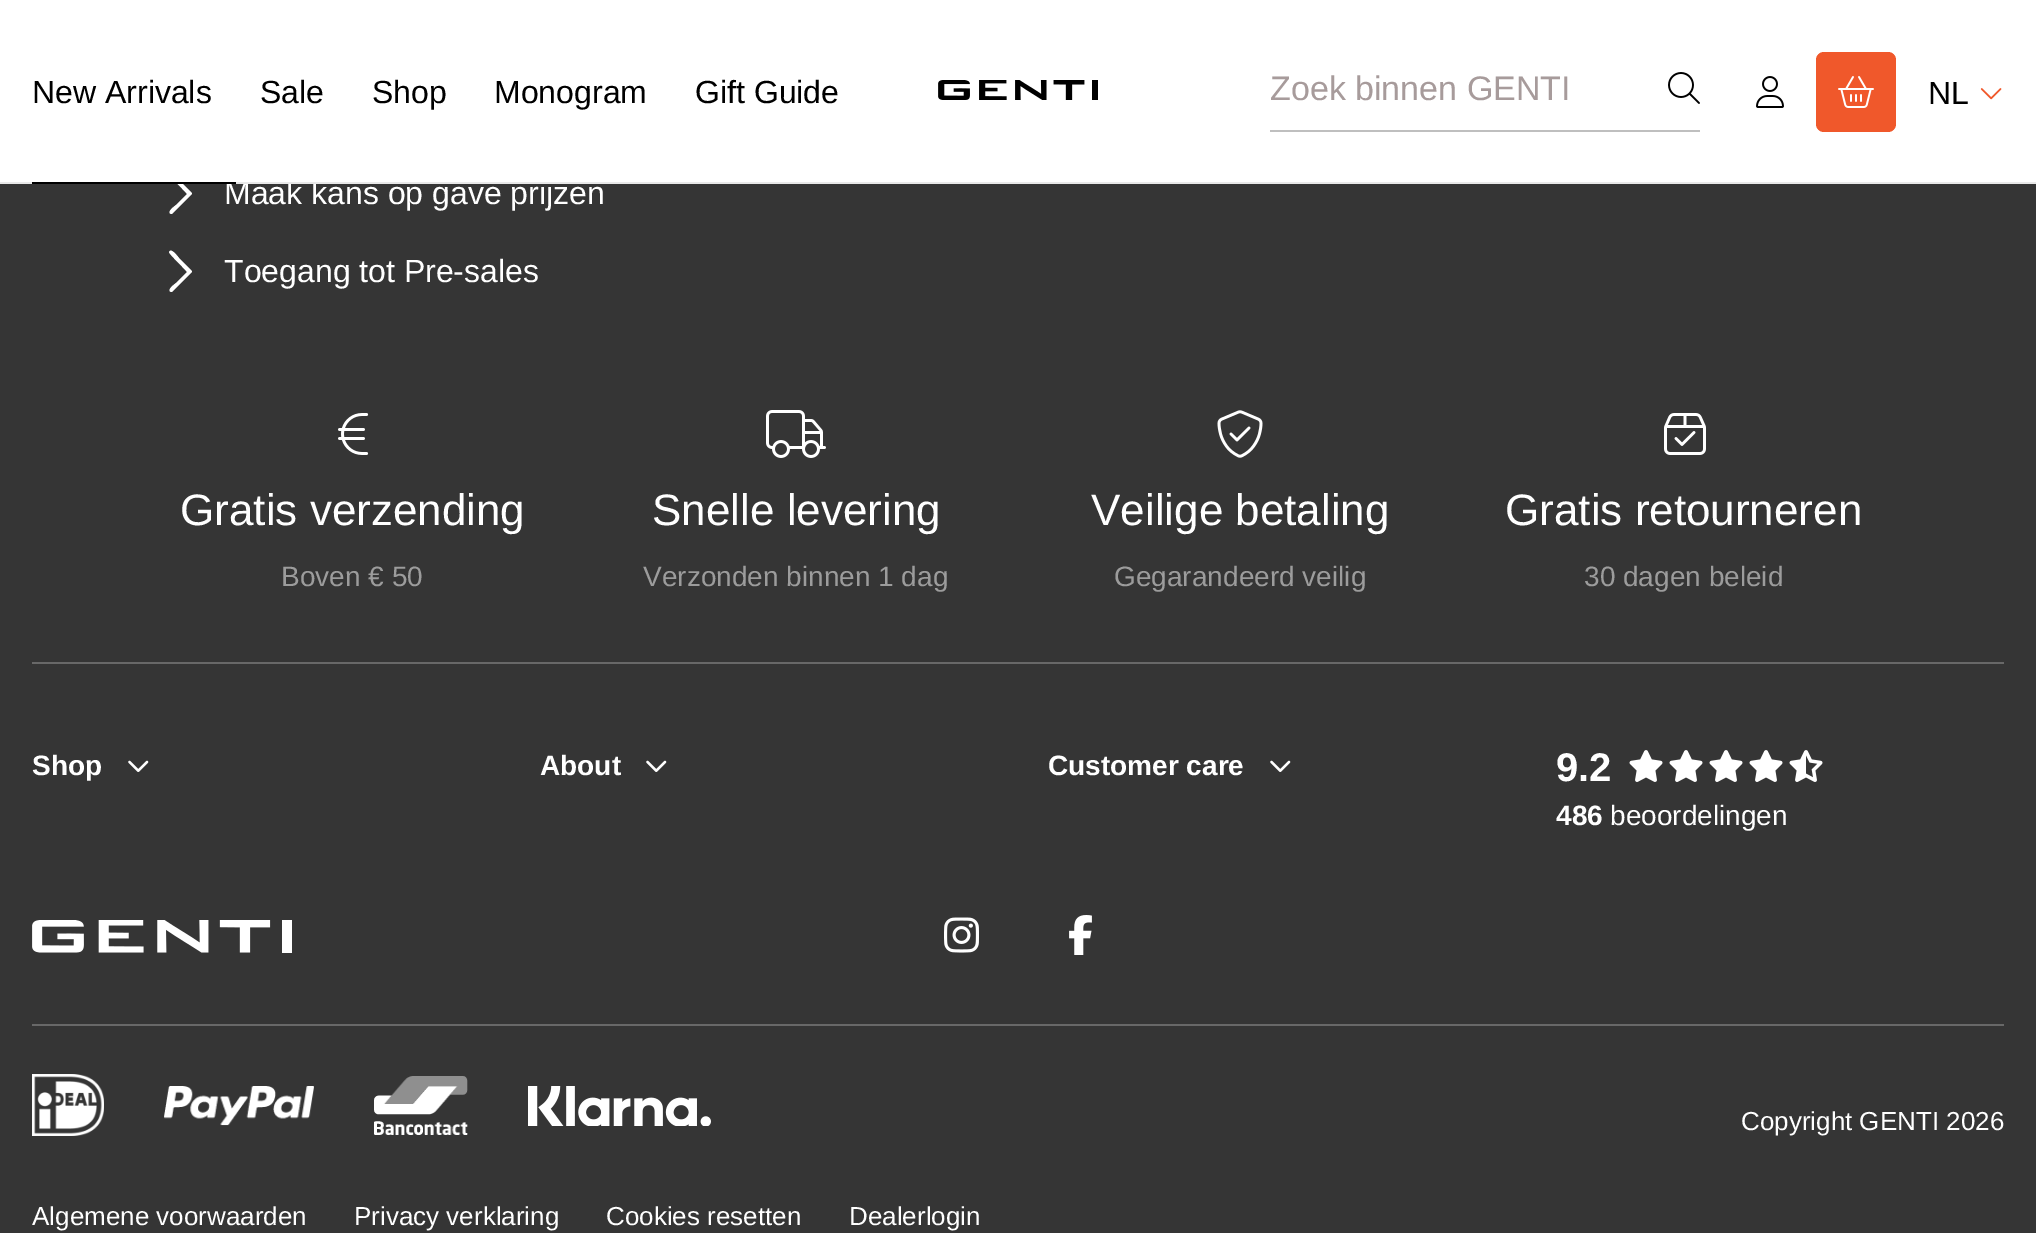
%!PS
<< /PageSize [2036 1233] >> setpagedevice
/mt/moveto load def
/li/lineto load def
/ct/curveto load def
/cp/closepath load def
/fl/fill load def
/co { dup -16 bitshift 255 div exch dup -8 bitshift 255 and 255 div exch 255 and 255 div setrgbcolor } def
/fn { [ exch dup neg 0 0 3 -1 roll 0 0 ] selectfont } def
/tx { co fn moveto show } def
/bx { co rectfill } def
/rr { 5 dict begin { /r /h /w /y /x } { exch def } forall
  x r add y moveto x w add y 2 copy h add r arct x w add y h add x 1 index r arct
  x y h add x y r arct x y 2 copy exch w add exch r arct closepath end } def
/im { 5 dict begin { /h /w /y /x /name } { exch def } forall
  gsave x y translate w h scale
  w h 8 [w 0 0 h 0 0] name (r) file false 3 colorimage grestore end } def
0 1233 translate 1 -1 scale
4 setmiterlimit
0 0 2036 1233 16#353535 bx
16#FFFFFF co
191 192 mt 192 193 192 194 192 194 ct 172 214 li 171 214 li 166 212 175 206 176 205 ct 187 194 li 185 191 169 176 169 174 ct 171 169 178 179 179 180 ct cp fl
0 0 2036 182 16#FFFFFF bx
(media/1.raw) 938 80 160 20 im
1270 130 430 2 16#BFBFBF bx
(media/2.raw) 1668 72 32 32 im
(media/3.raw) 1756 76 28 32 im
16#F0582B co
1816 52 80 80 8 rr fl
(media/4.raw) 1838 76 36 32 im
(media/5.raw) 1980 88 22 12 im
16#FFFFFF co
191 270 mt 192 271 192 272 192 272 ct 172 292 li 171 292 li 166 290 175 284 176 283 ct 187 272 li 185 269 169 254 169 252 ct 171 247 178 257 179 258 ct cp fl
(media/6.raw) 338 413 31 42 im
(media/7.raw) 766 410 60 48 im
(media/8.raw) 1217 410 46 48 im
(media/9.raw) 1664 413 42 42 im
32 662 1972 2 16#686868 bx
(media/10.raw) 128 760 21 12 im
(media/10.raw) 646 760 21 12 im
(media/10.raw) 1270 760 21 12 im
(media/11.raw) 1629 750 34 32 im
(media/11.raw) 1669 750 34 32 im
(media/11.raw) 1709 750 34 32 im
(media/11.raw) 1749 750 34 32 im
(media/12.raw) 1789 750 34 32 im
32 1024 1972 2 16#686868 bx
(media/13.raw) 32 920 260 33 im
(media/14.raw) 944 917 35 36 im
(media/15.raw) 1069 915 23 40 im
(media/16.raw) 32 1074 72 62 im
(media/17.raw) 164 1086 150 40 im
(media/18.raw) 374 1076 94 59 im
(media/19.raw) 528 1086 183 40 im
(New Arrivals) 32 103 /LiberationSans-Regular 32 16#000000 tx
(Sale) 260 103 /LiberationSans-Regular 32 16#000000 tx
(Shop) 372 103 /LiberationSans-Regular 32 16#000000 tx
(Monogram) 494 103 /LiberationSans-Regular 32 16#000000 tx
(Gift Guide) 695 103 /LiberationSans-Regular 32 16#000000 tx
(Zoek binnen GENTI) 1270 100 /LiberationSans-Regular 34 16#A79B9B tx
(NL) 1928 104 /LiberationSans-Regular 32 16#000000 tx
(Maak kans op gave prijzen) 224 204 /LiberationSans-Regular 32 16#FFFFFF tx
0 182 2036 2 16#E8E8E8 bx
32 182 204 2 16#000000 bx
(Toegang tot Pre-sales) 224 282 /LiberationSans-Regular 32 16#FFFFFF tx
(Gratis verzending) 180 525 /LiberationSans-Regular 44 16#FFFFFF tx
(Boven € 50) 281 586 /LiberationSans-Regular 28 16#9C9C9C tx
(Snelle levering) 652 525 /LiberationSans-Regular 44 16#FFFFFF tx
(Verzonden binnen 1 dag) 643 586 /LiberationSans-Regular 28 16#9C9C9C tx
(Veilige betaling) 1091 525 /LiberationSans-Regular 44 16#FFFFFF tx
(Gegarandeerd veilig) 1114 586 /LiberationSans-Regular 28 16#9C9C9C tx
(Gratis retourneren) 1505 525 /LiberationSans-Regular 44 16#FFFFFF tx
(30 dagen beleid) 1584 586 /LiberationSans-Regular 28 16#9C9C9C tx
(Shop) 32 775 /LiberationSans-Bold 28 16#FFFFFF tx
(About) 540 775 /LiberationSans-Bold 28 16#FFFFFF tx
(Customer care) 1048 775 /LiberationSans-Bold 28 16#FFFFFF tx
(9.2) 1556 781 /LiberationSans-Bold 40 16#FFFFFF tx
(486) 1556 825 /LiberationSans-Bold 28 16#FFFFFF tx
(beoordelingen) 1610 825 /LiberationSans-Regular 28 16#FFFFFF tx
(Copyright GENTI 2026) 1741 1130 /LiberationSans-Regular 26 16#FFFFFF tx
(Algemene voorwaarden) 32 1225 /LiberationSans-Regular 26 16#FFFFFF tx
(Privacy verklaring) 354 1225 /LiberationSans-Regular 26 16#FFFFFF tx
(Cookies resetten) 606 1225 /LiberationSans-Regular 26 16#FFFFFF tx
(Dealerlogin) 849 1225 /LiberationSans-Regular 26 16#FFFFFF tx
showpage
